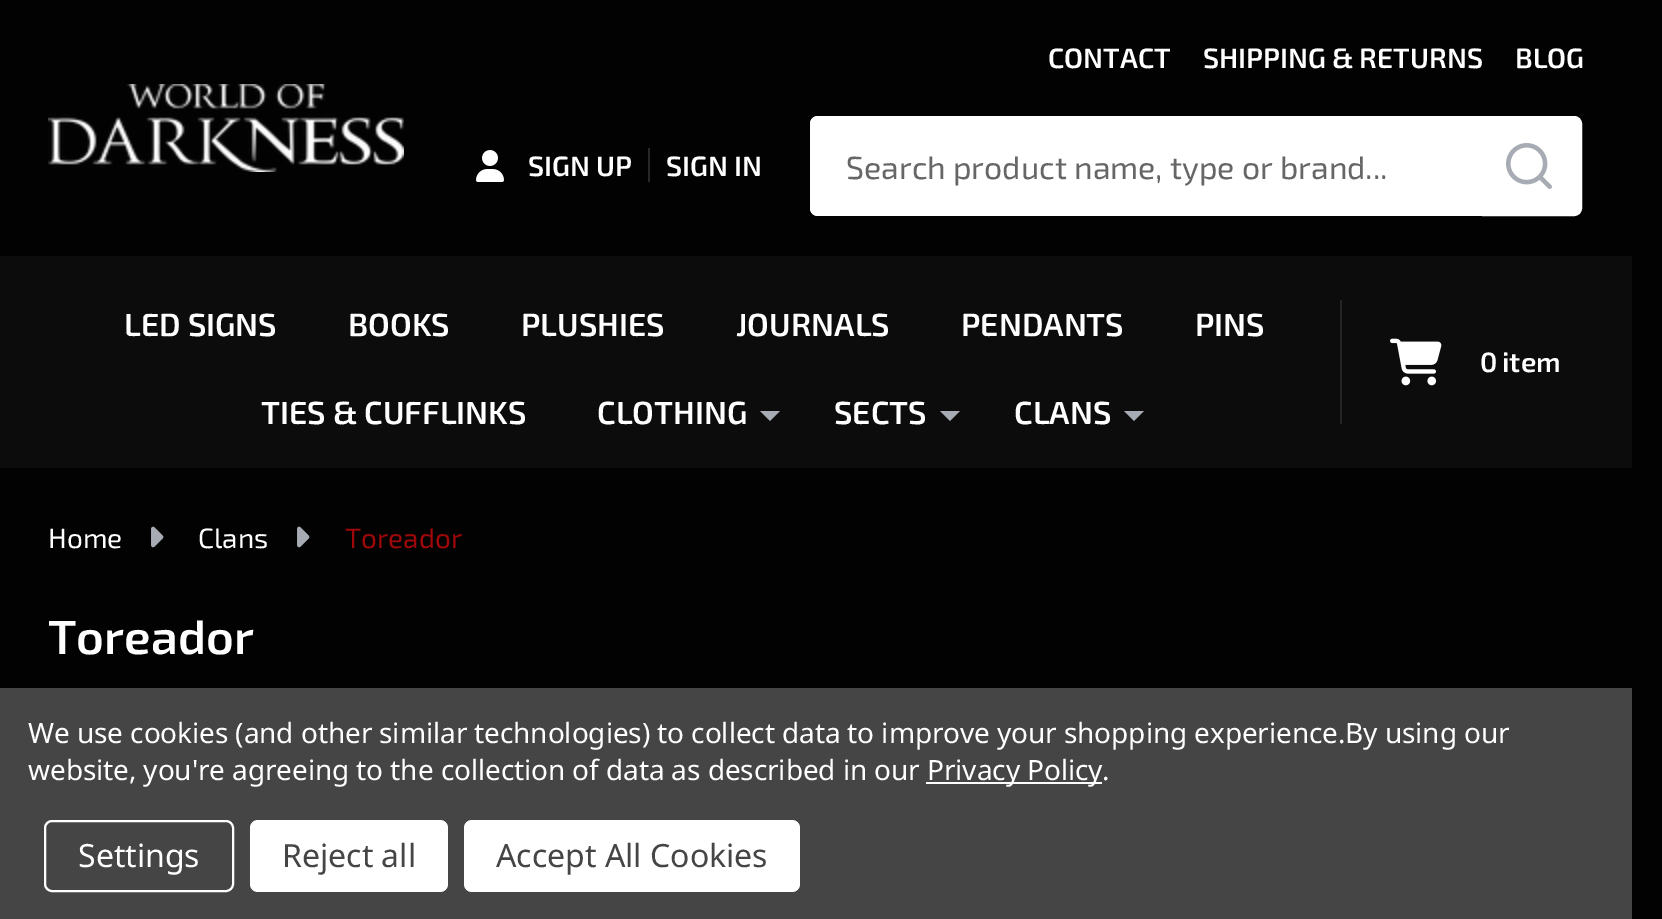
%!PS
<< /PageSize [1662 919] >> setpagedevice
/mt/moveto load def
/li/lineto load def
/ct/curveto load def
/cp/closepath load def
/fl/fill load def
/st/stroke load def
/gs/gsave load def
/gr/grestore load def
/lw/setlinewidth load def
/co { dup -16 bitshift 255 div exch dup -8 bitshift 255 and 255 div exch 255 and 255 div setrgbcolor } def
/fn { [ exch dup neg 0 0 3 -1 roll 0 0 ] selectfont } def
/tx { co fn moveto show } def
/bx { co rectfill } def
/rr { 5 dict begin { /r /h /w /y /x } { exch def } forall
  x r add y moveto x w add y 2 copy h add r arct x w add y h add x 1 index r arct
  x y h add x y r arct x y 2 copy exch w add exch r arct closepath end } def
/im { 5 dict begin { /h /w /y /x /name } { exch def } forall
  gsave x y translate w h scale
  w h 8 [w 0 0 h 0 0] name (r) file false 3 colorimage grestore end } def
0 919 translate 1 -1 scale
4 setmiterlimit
0 0 1662 919 16#020202 bx
(media/1.raw) 48 84 356 88 im
(media/2.raw) 476 150 28 32 im
648 148 2 34 16#282828 bx
16#FFFFFF co
818 116 mt 1482 116 li 1482 216 li 818 216 li 813.5 216 810 212.5 810 208 ct 810 124 li 810 119.5 813.5 116 818 116 ct cp fl
818 116 mt 1482 116 li 1482 216 li 818 216 li 814 216 810 212 810 208 ct 810 124 li 810 120 814 116 818 116 ct cp 818 120 mt 1482 120 li 1482 212 li 818 212 li 816 212 814 210 814 208 ct 814 124 li 814 122 816 120 818 120 ct cp eofill
1484 118 mt 1574 118 li 1577.5 118 1580 120.5 1580 124 ct 1580 208 li 1580 211.5 1577.5 214 1574 214 ct 1484 214 li cp gs fl gr
4 lw
st
(media/3.raw) 1506 143 46 46 im
0 256 1632 212 16#0C0C0C bx
16#A7ABB3 co
760 411 mt 770 421 li 780 411 li cp fl
940 411 mt 950 421 li 960 411 li cp fl
1124 411 mt 1134 421 li 1144 411 li cp fl
1340 300 2 124 16#242424 bx
(media/4.raw) 1390 338 52 48 im
(media/5.raw) 151 526 13 22 im
(media/5.raw) 297 526 13 22 im
0 688 1632 231 16#454545 bx
926 782 176 2 16#FFFFFF bx
2 lw
45 821 188 70 7 rr st
250 820 198 72 8 rr fl
464 820 336 72 8 rr fl
(CONTACT) 1048 68 /Exo2-SemiBold 28 16#FFFFFF tx
(SHIPPING & RETURNS) 1203 68 /Exo2-SemiBold 28 16#FFFFFF tx
(BLOG) 1515 68 /Exo2-SemiBold 28 16#FFFFFF tx
(SIGN UP) 528 176 /Exo2-SemiBold 28 16#FFFFFF tx
(SIGN IN) 666 176 /Exo2-SemiBold 28 16#FFFFFF tx
(Search product name, type or brand...) 846 179 /Exo2-Regular 32 16#666666 tx
(LED SIGNS) 124 336 /Exo2-SemiBold 32 16#FFFFFF tx
(BOOKS) 348 336 /Exo2-SemiBold 32 16#FFFFFF tx
(PLUSHIES) 521 336 /Exo2-SemiBold 32 16#FFFFFF tx
(JOURNALS) 736 336 /Exo2-SemiBold 32 16#FFFFFF tx
(PENDANTS) 961 336 /Exo2-SemiBold 32 16#FFFFFF tx
(PINS) 1195 336 /Exo2-SemiBold 32 16#FFFFFF tx
(TIES & CUFFLINKS) 261 424 /Exo2-SemiBold 32 16#FFFFFF tx
(CLOTHING) 597 424 /Exo2-SemiBold 32 16#FFFFFF tx
(SECTS) 834 424 /Exo2-SemiBold 32 16#FFFFFF tx
(CLANS) 1014 424 /Exo2-SemiBold 32 16#FFFFFF tx
/Exo2-SemiBold 28 fn
1480 372 mt -1 0 (0) ashow
(item) 1502 372 /Exo2-SemiBold 28 16#FFFFFF tx
(Home) 48 548 /Exo2-Regular 28 16#FFFFFF tx
(Clans) 198 548 /Exo2-Regular 28 16#FFFFFF tx
(Toreador) 345 548 /Exo2-Regular 28 16#9F080A tx
(Toreador) 48 654 /Exo2-SemiBold 48 16#FFFFFF tx
/NotoSans-Regular 28 fn
28 743 mt -.1 0 (We use cookies \(and other similar technologies\) to collect data to improve your shopping experience.By using our) ashow
28 780 mt -.1 0 (website, you're agreeing to the collection of data as described in our) ashow
927 780 mt -.1 0 (Privacy Policy.) ashow
(Settings) 78 867 /NotoSans-Regular 32 16#FFFFFF tx
(Reject all) 282 867 /NotoSans-Regular 32 16#454545 tx
(Accept All Cookies) 496 867 /NotoSans-Regular 32 16#454545 tx
showpage
